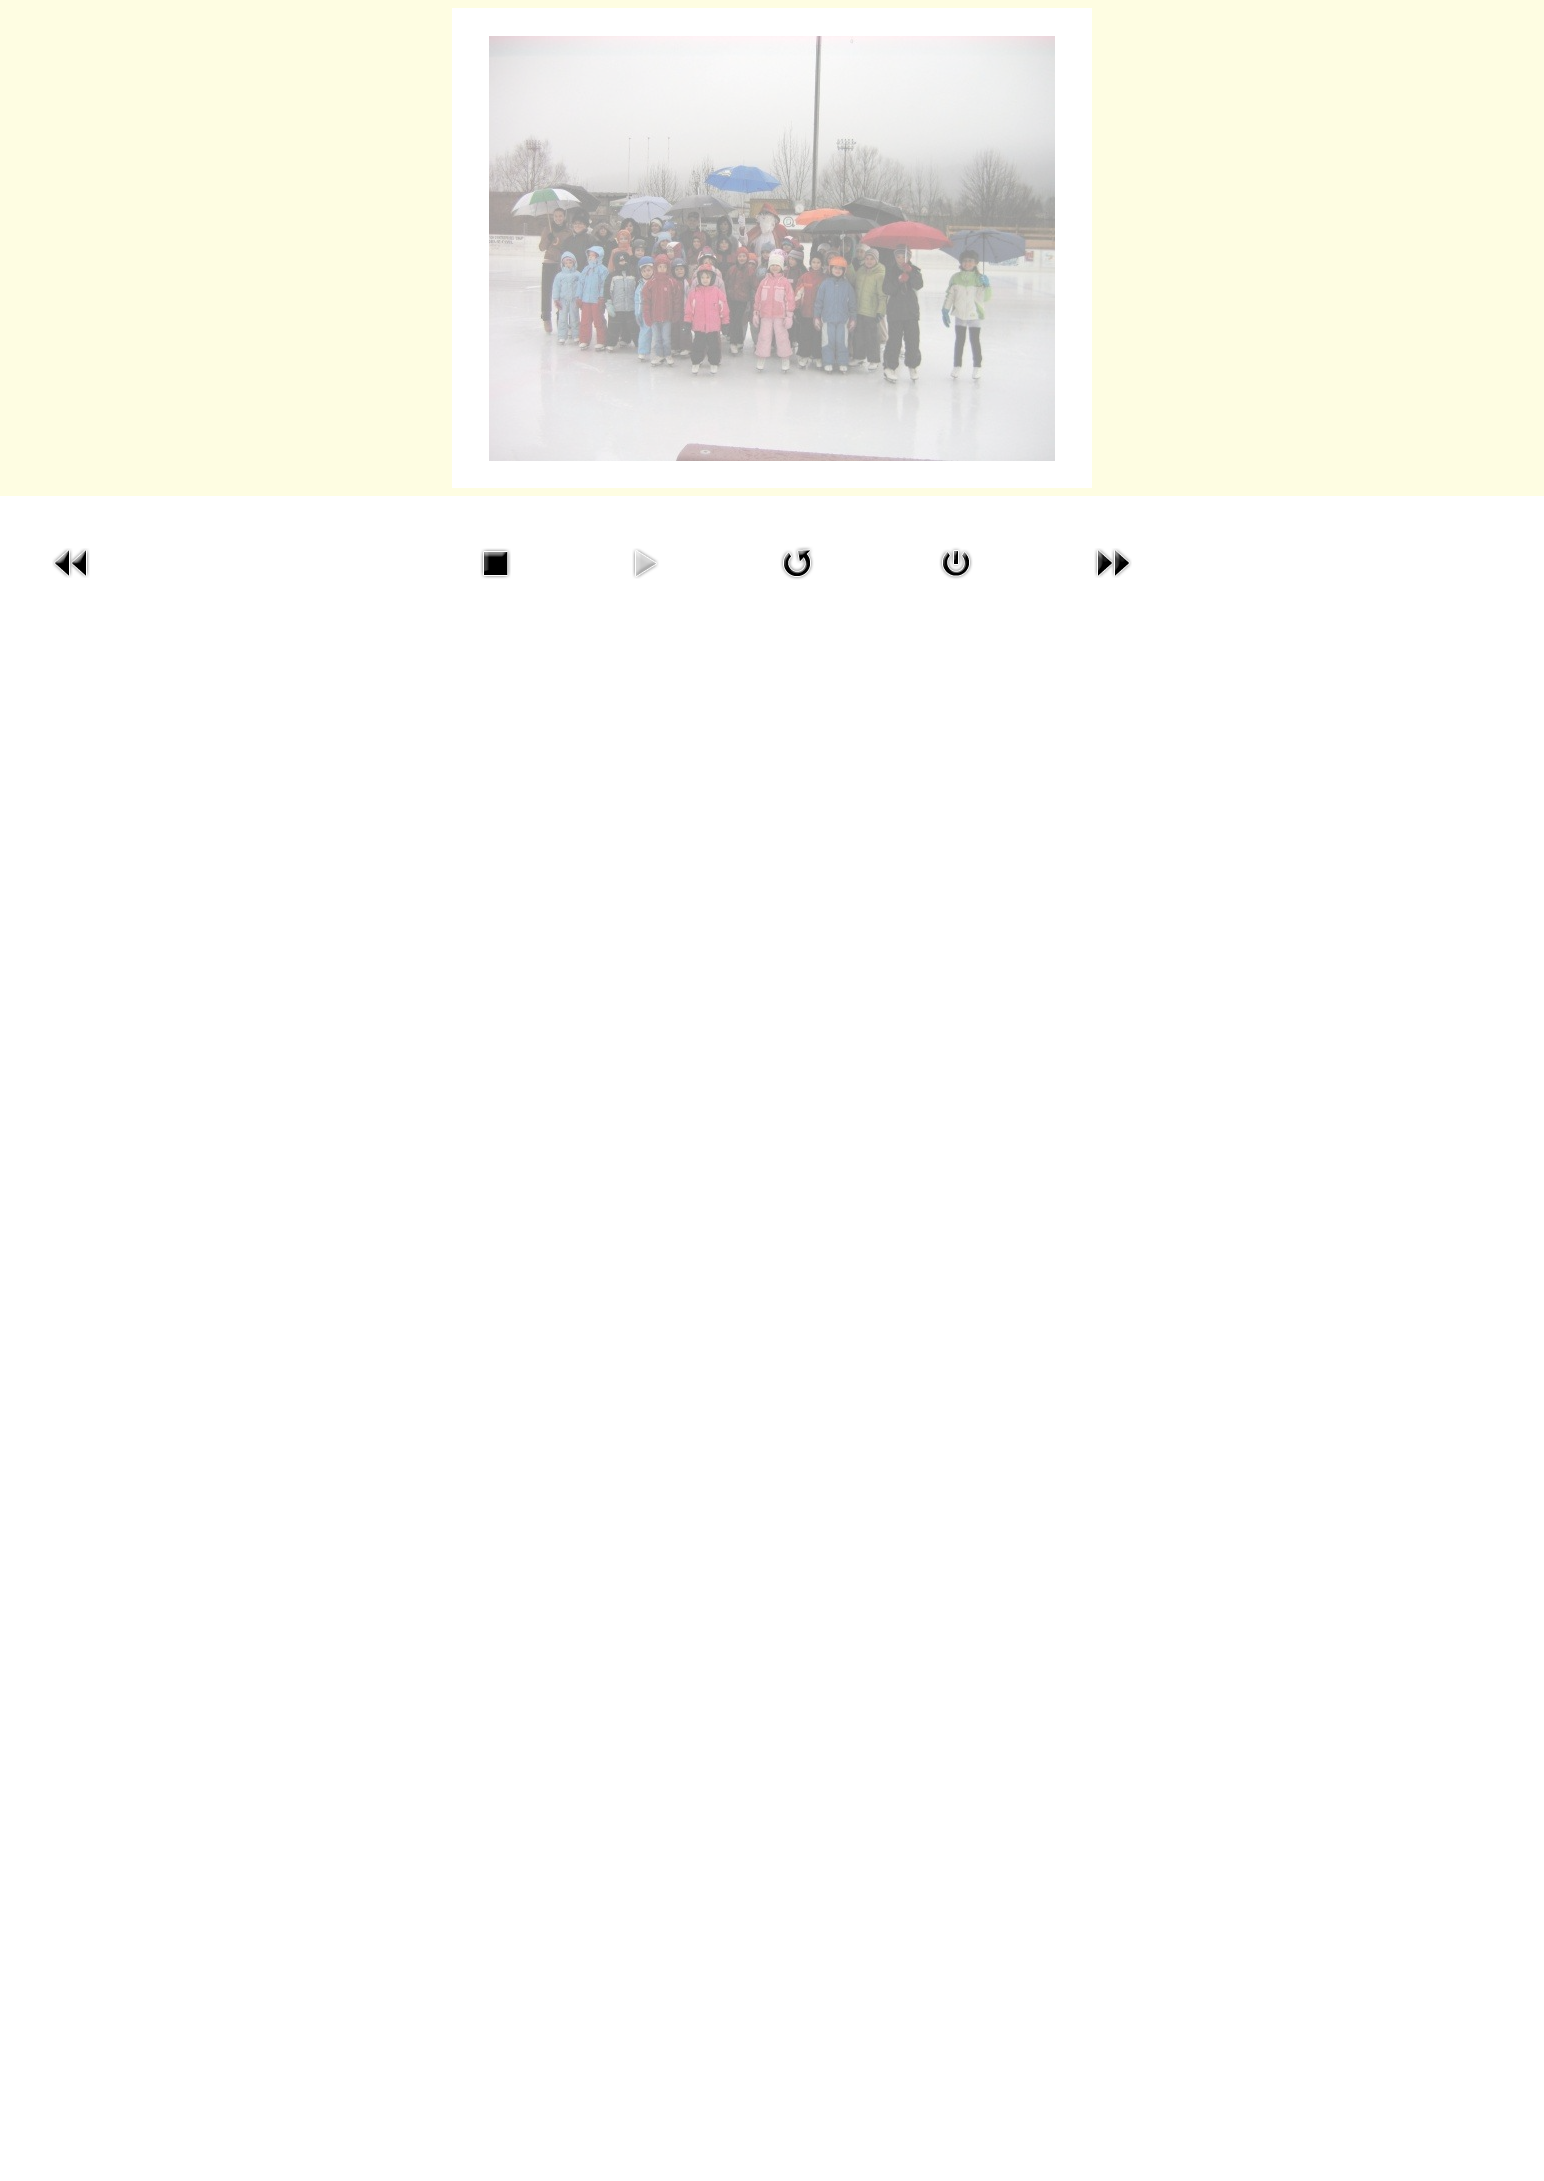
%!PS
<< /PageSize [1544 2181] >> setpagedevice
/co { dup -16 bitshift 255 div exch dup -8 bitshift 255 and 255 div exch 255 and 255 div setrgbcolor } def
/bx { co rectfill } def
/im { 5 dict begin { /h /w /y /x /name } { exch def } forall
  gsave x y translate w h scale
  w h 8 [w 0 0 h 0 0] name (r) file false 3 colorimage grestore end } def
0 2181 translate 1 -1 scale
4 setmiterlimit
0 0 1544 2181 16#FFFFFF bx
0 0 1544 496 16#FEFDE2 bx
452 8 640 480 16#FFFFFF bx
(media/1.raw) 489 36 566 425 im
(media/2.raw) 52 548 38 30 im
(media/3.raw) 480 548 31 31 im
(media/4.raw) 632 548 27 31 im
(media/5.raw) 780 546 34 34 im
(media/6.raw) 939 547 34 33 im
(media/7.raw) 1094 548 38 30 im
showpage
